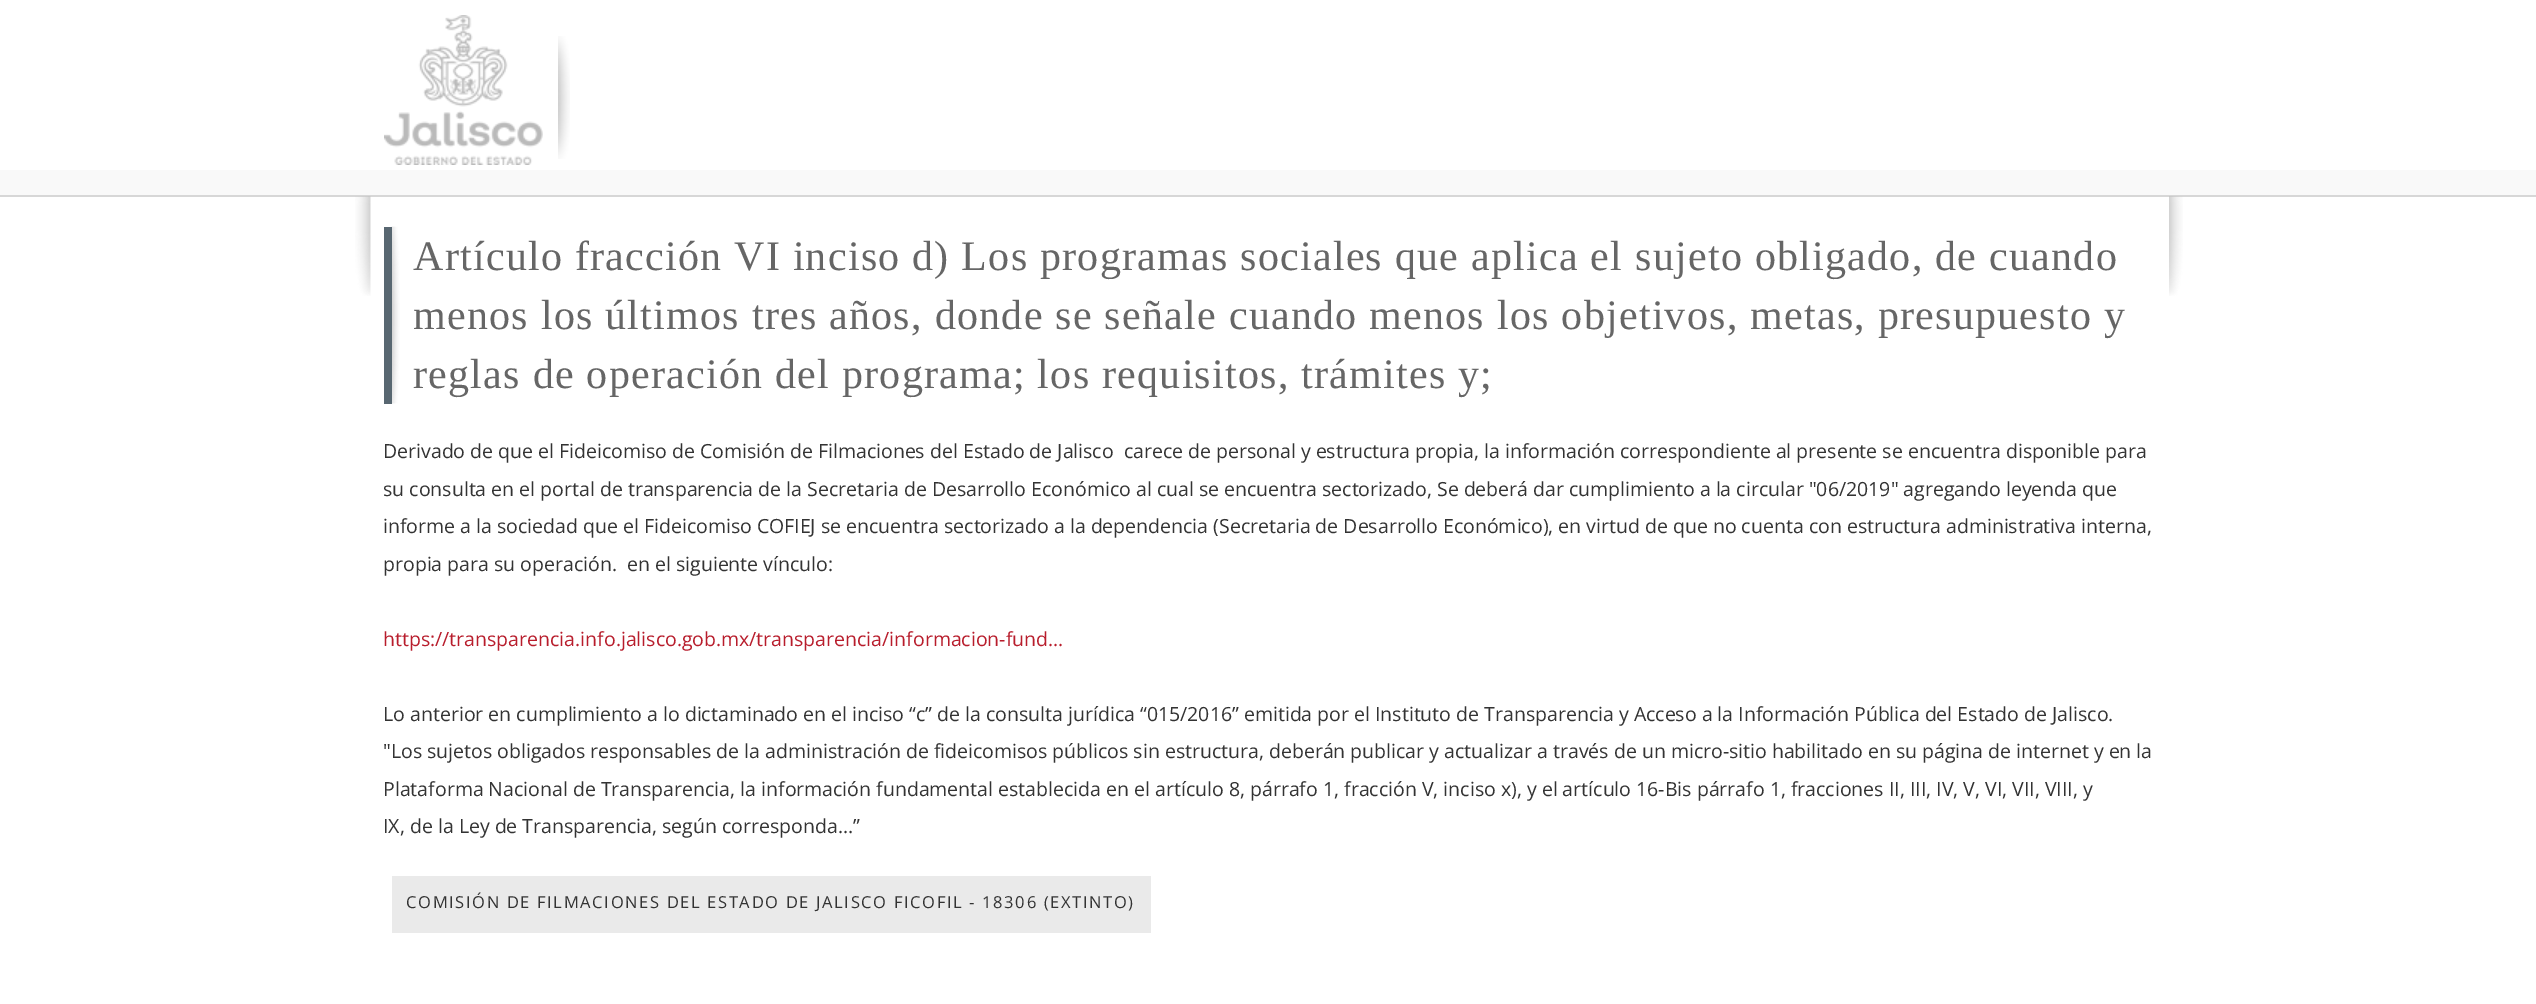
%!PS
<< /PageSize [2536 1004] >> setpagedevice
/mt/moveto load def
/co { dup -16 bitshift 255 div exch dup -8 bitshift 255 and 255 div exch 255 and 255 div setrgbcolor } def
/fn { [ exch dup neg 0 0 3 -1 roll 0 0 ] selectfont } def
/tx { co fn moveto show } def
/bx { co rectfill } def
/im { 5 dict begin { /h /w /y /x /name } { exch def } forall
  gsave x y translate w h scale
  w h 8 [w 0 0 h 0 0] name (r) file false 3 colorimage grestore end } def
0 1004 translate 1 -1 scale
4 setmiterlimit
0 0 2536 1004 16#FFFFFF bx
(media/1.raw) 558 36 12 123 im
(media/2.raw) 384 15 159 150 im
0 170 2536 25 16#F9F9F9 bx
0 195 2536 2 16#D7D7D7 bx
(media/3.raw) 355 196 1828 100 im
(media/4.raw) 391 226 9 178 im
384 227 8 177 16#586771 bx
392 876 759 57 16#EAEAEA bx
/LiberationSerif-Regular 42 fn
16#666666 co
413 270 mt 1.25 0 (Artículo fracción VI inciso d\) Los programas sociales que aplica el sujeto obligado, de cuando) ashow
413 329 mt 1.25 0 (menos los últimos tres años, donde se señale cuando menos los objetivos, metas, presupuesto y) ashow
413 388 mt 1.25 0 (reglas de operación del programa; los requisitos, trámites y;) ashow
(Derivado de que el Fideicomiso de Comisión de Filmaciones del Estado de Jalisco  carece de personal y estructura propia, la información correspondiente al presente se encuentra disponible para) 383 458 /OpenSans-Regular 19.5 16#333333 tx
(su consulta en el portal de transparencia de la Secretaria de Desarrollo Económico al cual se encuentra sectorizado, Se deberá dar cumplimiento a la circular "06/2019" agregando leyenda que) 383 496 /OpenSans-Regular 19.5 16#333333 tx
(informe a la sociedad que el Fideicomiso COFIEJ se encuentra sectorizado a la dependencia \(Secretaria de Desarrollo Económico\), en virtud de que no cuenta con estructura administrativa interna,) 383 533 /OpenSans-Regular 19.5 16#333333 tx
(propia para su operación.  en el siguiente vínculo:) 383 571 /OpenSans-Regular 19.5 16#333333 tx
(https://transparencia.info.jalisco.gob.mx/transparencia/informacion-fund...) 383 646 /OpenSans-Regular 19.5 16#B81D2C tx
(Lo anterior en cumplimiento a lo dictaminado en el inciso “c” de la consulta jurídica “015/2016” emitida por el Instituto de Transparencia y Acceso a la Información Pública del Estado de Jalisco.) 383 721 /OpenSans-Regular 19.5 16#333333 tx
("Los sujetos obligados responsables de la administración de fideicomisos públicos sin estructura, deberán publicar y actualizar a través de un micro-sitio habilitado en su página de internet y en la) 383 758 /OpenSans-Regular 19.5 16#333333 tx
(Plataforma Nacional de Transparencia, la información fundamental establecida en el artículo 8, párrafo 1, fracción V, inciso x\), y el artículo 16-Bis párrafo 1, fracciones II, III, IV, V, VI, VII, VIII, y) 383 796 /OpenSans-Regular 19.5 16#333333 tx
(IX, de la Ley de Transparencia, según corresponda…”) 383 833 /OpenSans-Regular 19.5 16#333333 tx
/OpenSans-Regular 16.5 fn
406 908 mt 1.65 0 (COMISIÓN DE FILMACIONES DEL ESTADO DE JALISCO FICOFIL - 18306 \(EXTINTO\)) ashow
showpage
